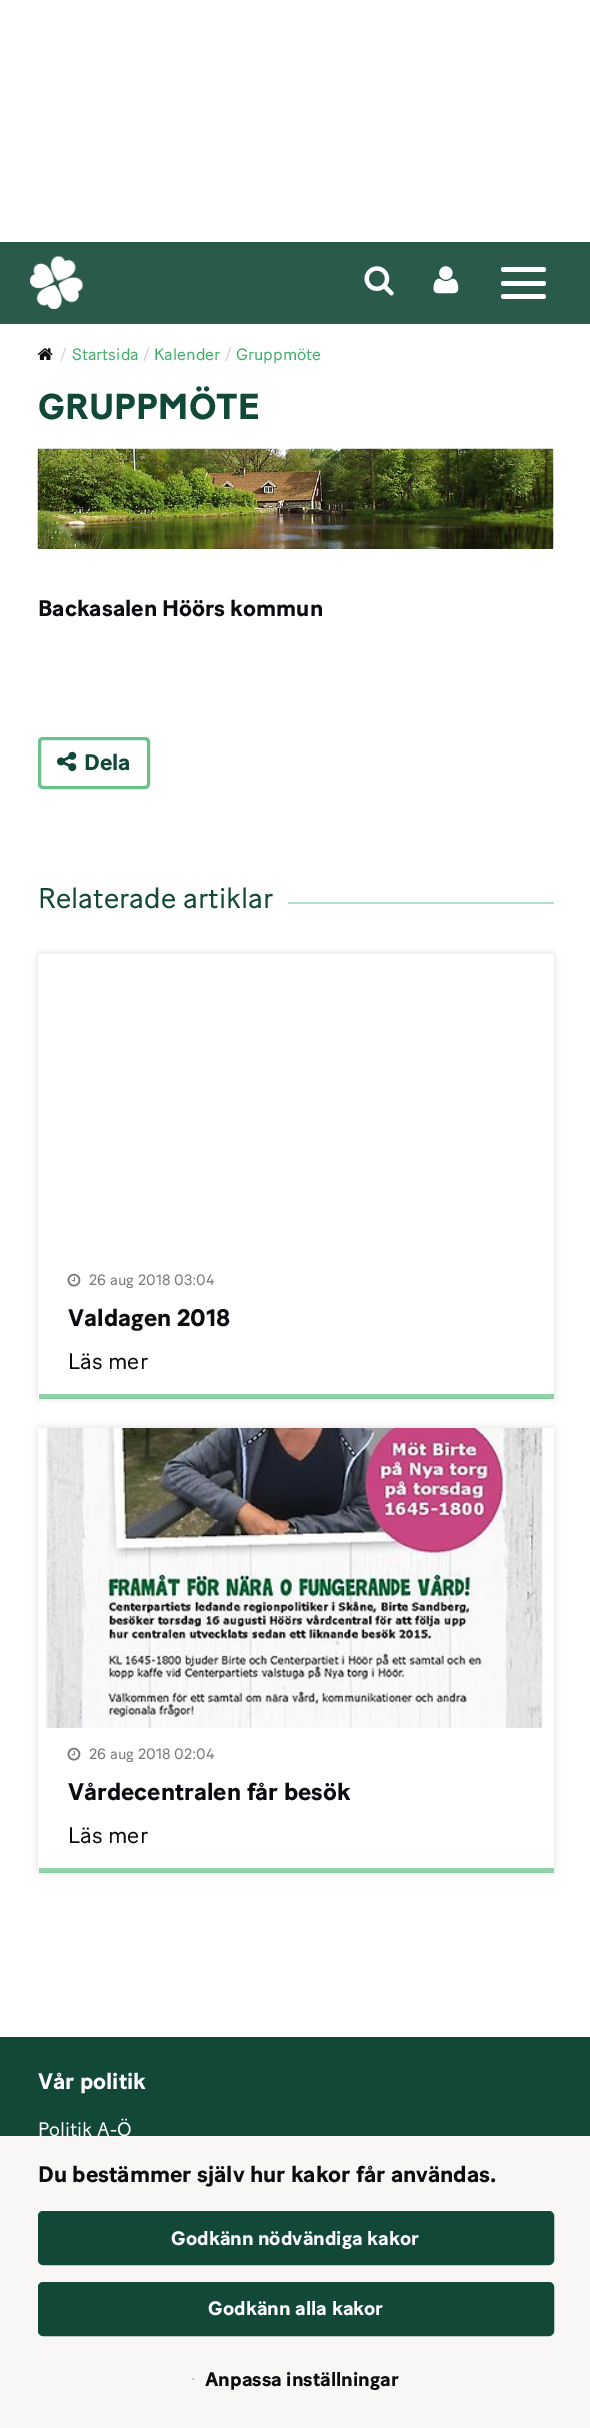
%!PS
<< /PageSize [590 2428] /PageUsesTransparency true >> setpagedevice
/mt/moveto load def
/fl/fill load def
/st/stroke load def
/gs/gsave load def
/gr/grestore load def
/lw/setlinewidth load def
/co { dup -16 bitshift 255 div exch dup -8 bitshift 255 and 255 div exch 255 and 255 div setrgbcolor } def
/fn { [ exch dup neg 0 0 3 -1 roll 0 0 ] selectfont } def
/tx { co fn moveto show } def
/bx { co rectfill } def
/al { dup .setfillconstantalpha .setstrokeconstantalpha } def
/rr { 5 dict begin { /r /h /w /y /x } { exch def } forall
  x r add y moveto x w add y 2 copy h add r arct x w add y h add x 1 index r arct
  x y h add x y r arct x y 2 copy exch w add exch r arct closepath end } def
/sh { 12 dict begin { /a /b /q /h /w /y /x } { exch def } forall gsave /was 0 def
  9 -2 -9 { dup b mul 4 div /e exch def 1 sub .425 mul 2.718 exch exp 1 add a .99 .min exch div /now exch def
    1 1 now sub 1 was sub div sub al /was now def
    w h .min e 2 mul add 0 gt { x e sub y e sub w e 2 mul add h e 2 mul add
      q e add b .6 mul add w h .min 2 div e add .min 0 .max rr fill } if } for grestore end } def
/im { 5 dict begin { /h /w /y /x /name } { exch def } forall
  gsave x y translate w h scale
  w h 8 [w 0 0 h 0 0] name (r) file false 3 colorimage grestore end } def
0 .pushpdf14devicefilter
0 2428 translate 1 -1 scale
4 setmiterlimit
0 0 590 2428 16#FFFFFF bx
0 242 590 82 16#295A4C bx
(media/1.raw) 30 256 53 53 im
(media/2.raw) 364 266 30 30 im
(media/3.raw) 433 266 26 28 im
16#FFFFFF co
501 267 45 5 2.5 rr fl
501 281 45 5 2.5 rr fl
501 294 45 5 2.5 rr fl
(media/4.raw) 37 348 16 12 im
(media/5.raw) 37 448 517 101 im
16#6AC18A co
3 lw
39.5 738.5 109 49 3.5 rr st
(media/6.raw) 57 751 20 21 im
288 902 266 2 16#B3DFC3 bx
16#000000 co
38 954 516 444 1.5 4 .12 sh
16#FFFFFF co
38 954 516 444 1.5 rr fl
0.57 al
39 1394 515 5 16#40AF69 bx
1 al
(media/7.raw) 67 1273 14 14 im
16#000000 co
38 1428 516 444 1.5 4 .12 sh
16#FFFFFF co
38 1428 516 444 1.5 rr fl
0.57 al
39 1868 515 5 16#40AF69 bx
1 al
(media/8.raw) 46 1428 499 300 im
(media/7.raw) 67 1747 14 14 im
0 2037 590 99 16#114838 bx
(/) 60 360 /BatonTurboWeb-Regular 16.5 16#D1D1D1 tx
(Startsida) 72 360 /BatonTurboWeb-Regular 16.5 16#40AF69 tx
(/) 143 360 /BatonTurboWeb-Regular 16.5 16#D1D1D1 tx
(Kalender) 154 360 /BatonTurboWeb-Regular 16.5 16#40AF69 tx
(/) 225 360 /BatonTurboWeb-Regular 16.5 16#D1D1D1 tx
(Gruppmöte) 236 360 /BatonTurboWeb-Regular 16.5 16#40AF69 tx
/BatonTurboWeb-Bold 36 fn
16#114838 co
38 419 mt .25 0 (GRUPPMÖTE) ashow
(Backasalen Höörs kommun) 38 616 /BatonTurboWeb-Bold 22.5 16#0F0C11 tx
(Dela) 84 770 /BatonTurboWeb-Bold 22.5 16#114838 tx
(Relaterade artiklar) 38 908 /BatonTurboWeb-Regular 28.5 16#114838 tx
(26 aug 2018 03:04) 89 1285 /BatonTurboWeb-Regular 15 16#797979 tx
(Valdagen 2018) 68 1326 /BatonTurboWeb-Bold 24 16#0F0C11 tx
(Läs mer) 68 1369 /BatonTurboWeb-Regular 22.5 16#0F0C11 tx
(26 aug 2018 02:04) 89 1759 /BatonTurboWeb-Regular 15 16#797979 tx
(Vårdecentralen får besök) 68 1800 /BatonTurboWeb-Bold 24 16#0F0C11 tx
(Läs mer) 68 1843 /BatonTurboWeb-Regular 22.5 16#0F0C11 tx
(Vår politik) 38 2089 /BatonTurboWeb-Bold 22.5 16#FFFFFF tx
(Politik A-Ö) 38 2136 /BatonTurboWeb-Regular 19.5 16#FFFFFF tx
0 2136 590 292 16#F8F7F5 bx
(Du bestämmer själv hur kakor får användas.) 38 2182 /BatonTurboWeb-Bold 22.5 16#0F0C11 tx
16#114838 co
39 2212 514 52 4 rr gs fl gr
2 lw
st
(Godkänn nödvändiga kakor) 171 2245 /BatonTurboWeb-Bold 19.5 16#FFFFFF tx
16#114838 co
39 2283 514 52 4 rr gs fl gr
st
(Godkänn alla kakor) 208 2315 /BatonTurboWeb-Bold 19.5 16#FFFFFF tx
(media/9.raw) 192 2378 3 2 im
(Anpassa inställningar) 205 2386 /BatonTurboWeb-Bold 19.5 16#0F0C11 tx
.poppdf14devicefilter showpage
